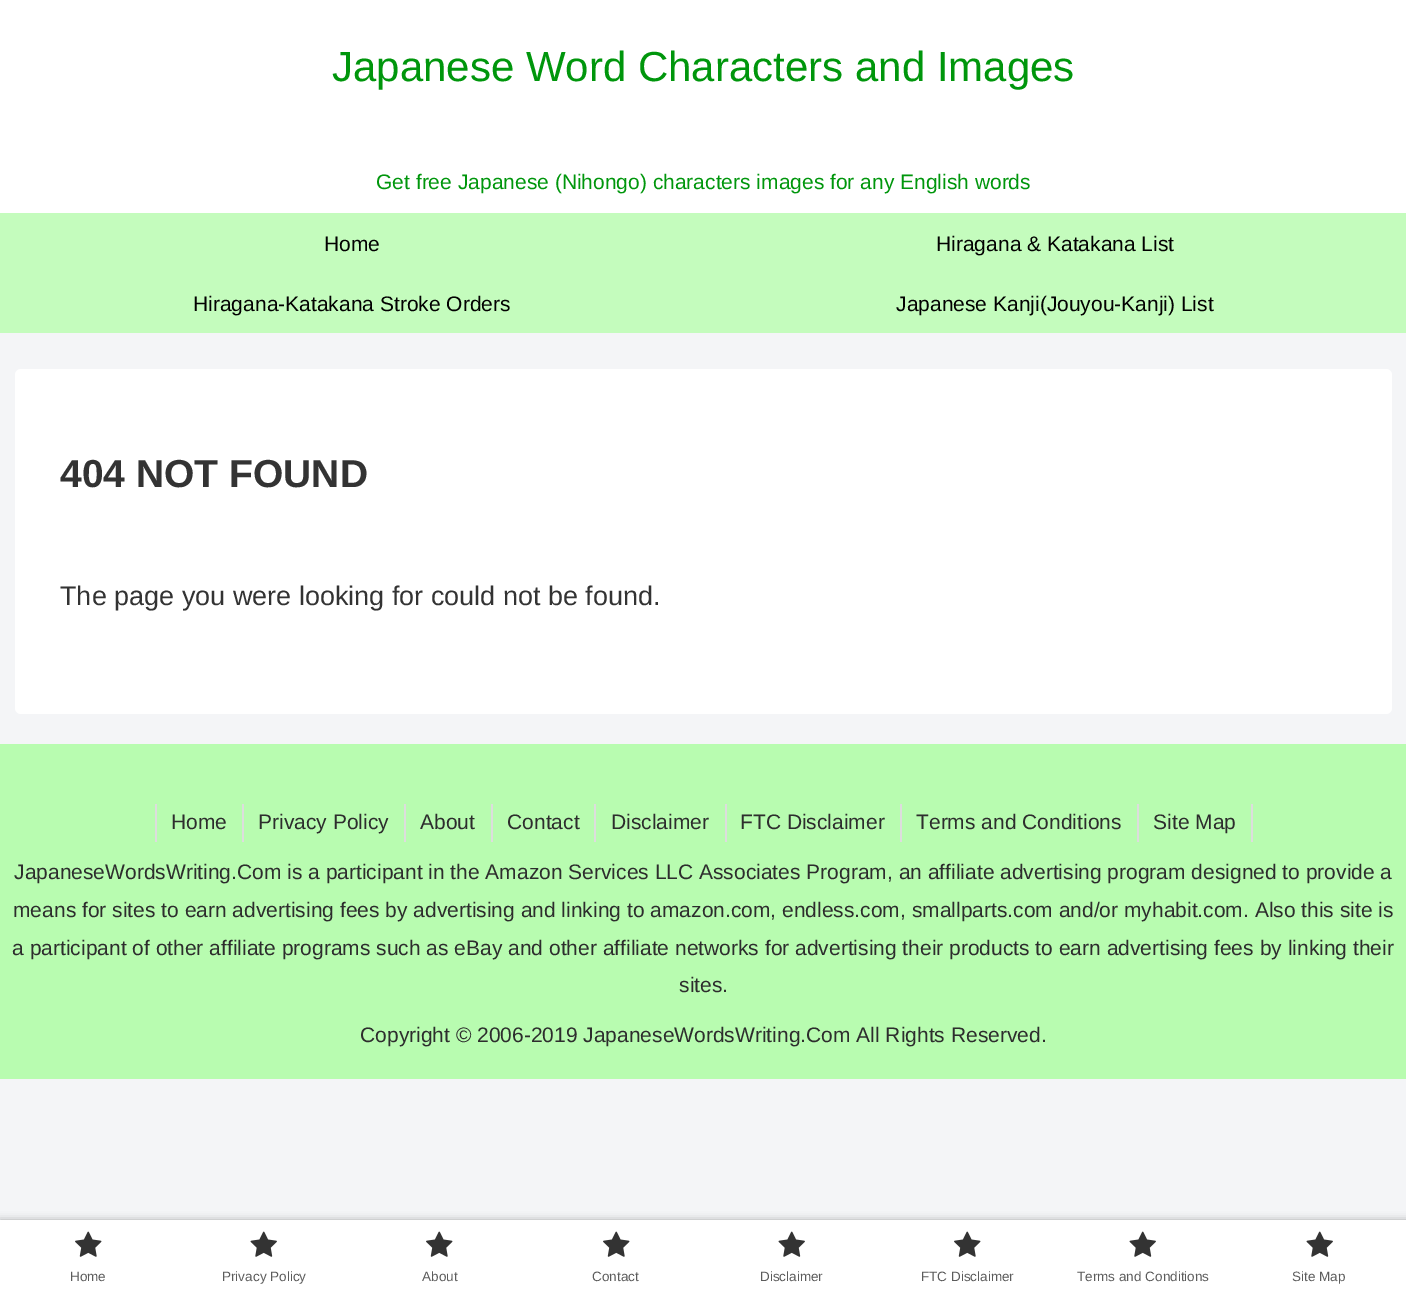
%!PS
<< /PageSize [1406 1294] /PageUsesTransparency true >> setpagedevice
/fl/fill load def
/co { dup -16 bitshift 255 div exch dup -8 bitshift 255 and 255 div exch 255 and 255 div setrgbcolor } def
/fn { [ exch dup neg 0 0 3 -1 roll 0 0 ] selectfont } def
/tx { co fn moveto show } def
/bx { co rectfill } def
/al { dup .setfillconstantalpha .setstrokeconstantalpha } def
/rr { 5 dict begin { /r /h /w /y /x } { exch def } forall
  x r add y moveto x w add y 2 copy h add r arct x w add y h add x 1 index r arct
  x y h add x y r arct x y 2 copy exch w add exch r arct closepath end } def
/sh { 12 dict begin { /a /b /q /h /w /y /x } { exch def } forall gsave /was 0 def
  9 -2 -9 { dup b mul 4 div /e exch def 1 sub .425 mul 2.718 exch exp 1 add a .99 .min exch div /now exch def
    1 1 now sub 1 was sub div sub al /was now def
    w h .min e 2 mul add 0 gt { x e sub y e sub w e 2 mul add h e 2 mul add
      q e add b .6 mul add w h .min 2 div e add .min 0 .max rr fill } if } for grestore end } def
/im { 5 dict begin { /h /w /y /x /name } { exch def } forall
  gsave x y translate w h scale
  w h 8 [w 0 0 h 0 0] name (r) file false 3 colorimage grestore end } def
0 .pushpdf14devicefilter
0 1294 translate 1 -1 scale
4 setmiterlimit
0 0 1406 1294 16#F4F5F7 bx
0 0 1406 213 16#FFFFFF bx
0 213 1406 120 16#C4FCBD bx
16#FFFFFF co
15 369 1377 345 6 rr fl
0 744 1406 335 16#B8FCB0 bx
155 804 2 38 16#DDDDDD bx
242 804 2 38 16#DDDDDD bx
404 804 2 38 16#DDDDDD bx
491 804 2 38 16#DDDDDD bx
594 804 2 38 16#DDDDDD bx
725 804 2 38 16#DDDDDD bx
900 804 2 38 16#DDDDDD bx
1251 804 2 38 16#DDDDDD bx
1137 804 2 38 16#DDDDDD bx
16#A9A9A9 co
0 1220 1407 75 0 4 1 sh
0 1220 1406 74 16#FFFFFF bx
(media/1.raw) 75 1231 27 26 im
(media/2.raw) 250 1231 27 26 im
(media/1.raw) 426 1231 27 26 im
(media/1.raw) 603 1231 27 26 im
(media/2.raw) 778 1231 27 26 im
(media/1.raw) 954 1231 27 26 im
(media/2.raw) 1129 1231 27 26 im
(media/2.raw) 1306 1231 27 26 im
(Japanese Word Characters and Images) 332 81 /LiberationSans-Regular 42 16#00960C tx
(Get free Japanese \(Nihongo\) characters images for any English words) 376 189 /LiberationSans-Regular 21 16#00960C tx
(Home) 324 251 /LiberationSans-Regular 21 16#020101 tx
(Hiragana & Katakana List) 936 251 /LiberationSans-Regular 21 16#020101 tx
(Hiragana-Katakana Stroke Orders) 193 311 /LiberationSans-Regular 21 16#020101 tx
(Japanese Kanji\(Jouyou-Kanji\) List) 896 311 /LiberationSans-Regular 21 16#020101 tx
(404 NOT FOUND) 60 487 /LiberationSans-Bold 39 16#333333 tx
(The page you were looking for could not be found.) 60 605 /LiberationSans-Regular 27 16#333333 tx
(Home) 171 829 /LiberationSans-Regular 21 16#2D2D2D tx
(Privacy Policy) 258 829 /LiberationSans-Regular 21 16#2D2D2D tx
(About) 420 829 /LiberationSans-Regular 21 16#2D2D2D tx
(Contact) 507 829 /LiberationSans-Regular 21 16#2D2D2D tx
(Disclaimer) 611 829 /LiberationSans-Regular 21 16#2D2D2D tx
(FTC Disclaimer) 740 829 /LiberationSans-Regular 21 16#2D2D2D tx
(Terms and Conditions) 916 829 /LiberationSans-Regular 21 16#2D2D2D tx
(Site Map) 1153 829 /LiberationSans-Regular 21 16#2D2D2D tx
(JapaneseWordsWriting.Com is a participant in the Amazon Services LLC Associates Program, an affiliate advertising program designed to provide a) 14 879 /LiberationSans-Regular 21 16#2D2D2D tx
(means for sites to earn advertising fees by advertising and linking to amazon.com, endless.com, smallparts.com and/or myhabit.com. Also this site is) 13 917 /LiberationSans-Regular 21 16#2D2D2D tx
(a participant of other affiliate programs such as eBay and other affiliate networks for advertising their products to earn advertising fees by linking their) 12 955 /LiberationSans-Regular 21 16#2D2D2D tx
(sites.) 679 992 /LiberationSans-Regular 21 16#2D2D2D tx
(Copyright © 2006-2019 JapaneseWordsWriting.Com All Rights Reserved.) 360 1042 /LiberationSans-Regular 21 16#2D2D2D tx
(Home) 70 1281 /LiberationSans-Regular 13.5 16#5C5C5C tx
(Privacy Policy) 222 1281 /LiberationSans-Regular 13.5 16#5C5C5C tx
(About) 422 1281 /LiberationSans-Regular 13.5 16#5C5C5C tx
(Contact) 592 1281 /LiberationSans-Regular 13.5 16#5C5C5C tx
(Disclaimer) 760 1281 /LiberationSans-Regular 13.5 16#5C5C5C tx
(FTC Disclaimer) 921 1281 /LiberationSans-Regular 13.5 16#5C5C5C tx
(Terms and Conditions) 1077 1281 /LiberationSans-Regular 13.5 16#5C5C5C tx
(Site Map) 1292 1281 /LiberationSans-Regular 13.5 16#5C5C5C tx
.poppdf14devicefilter showpage
